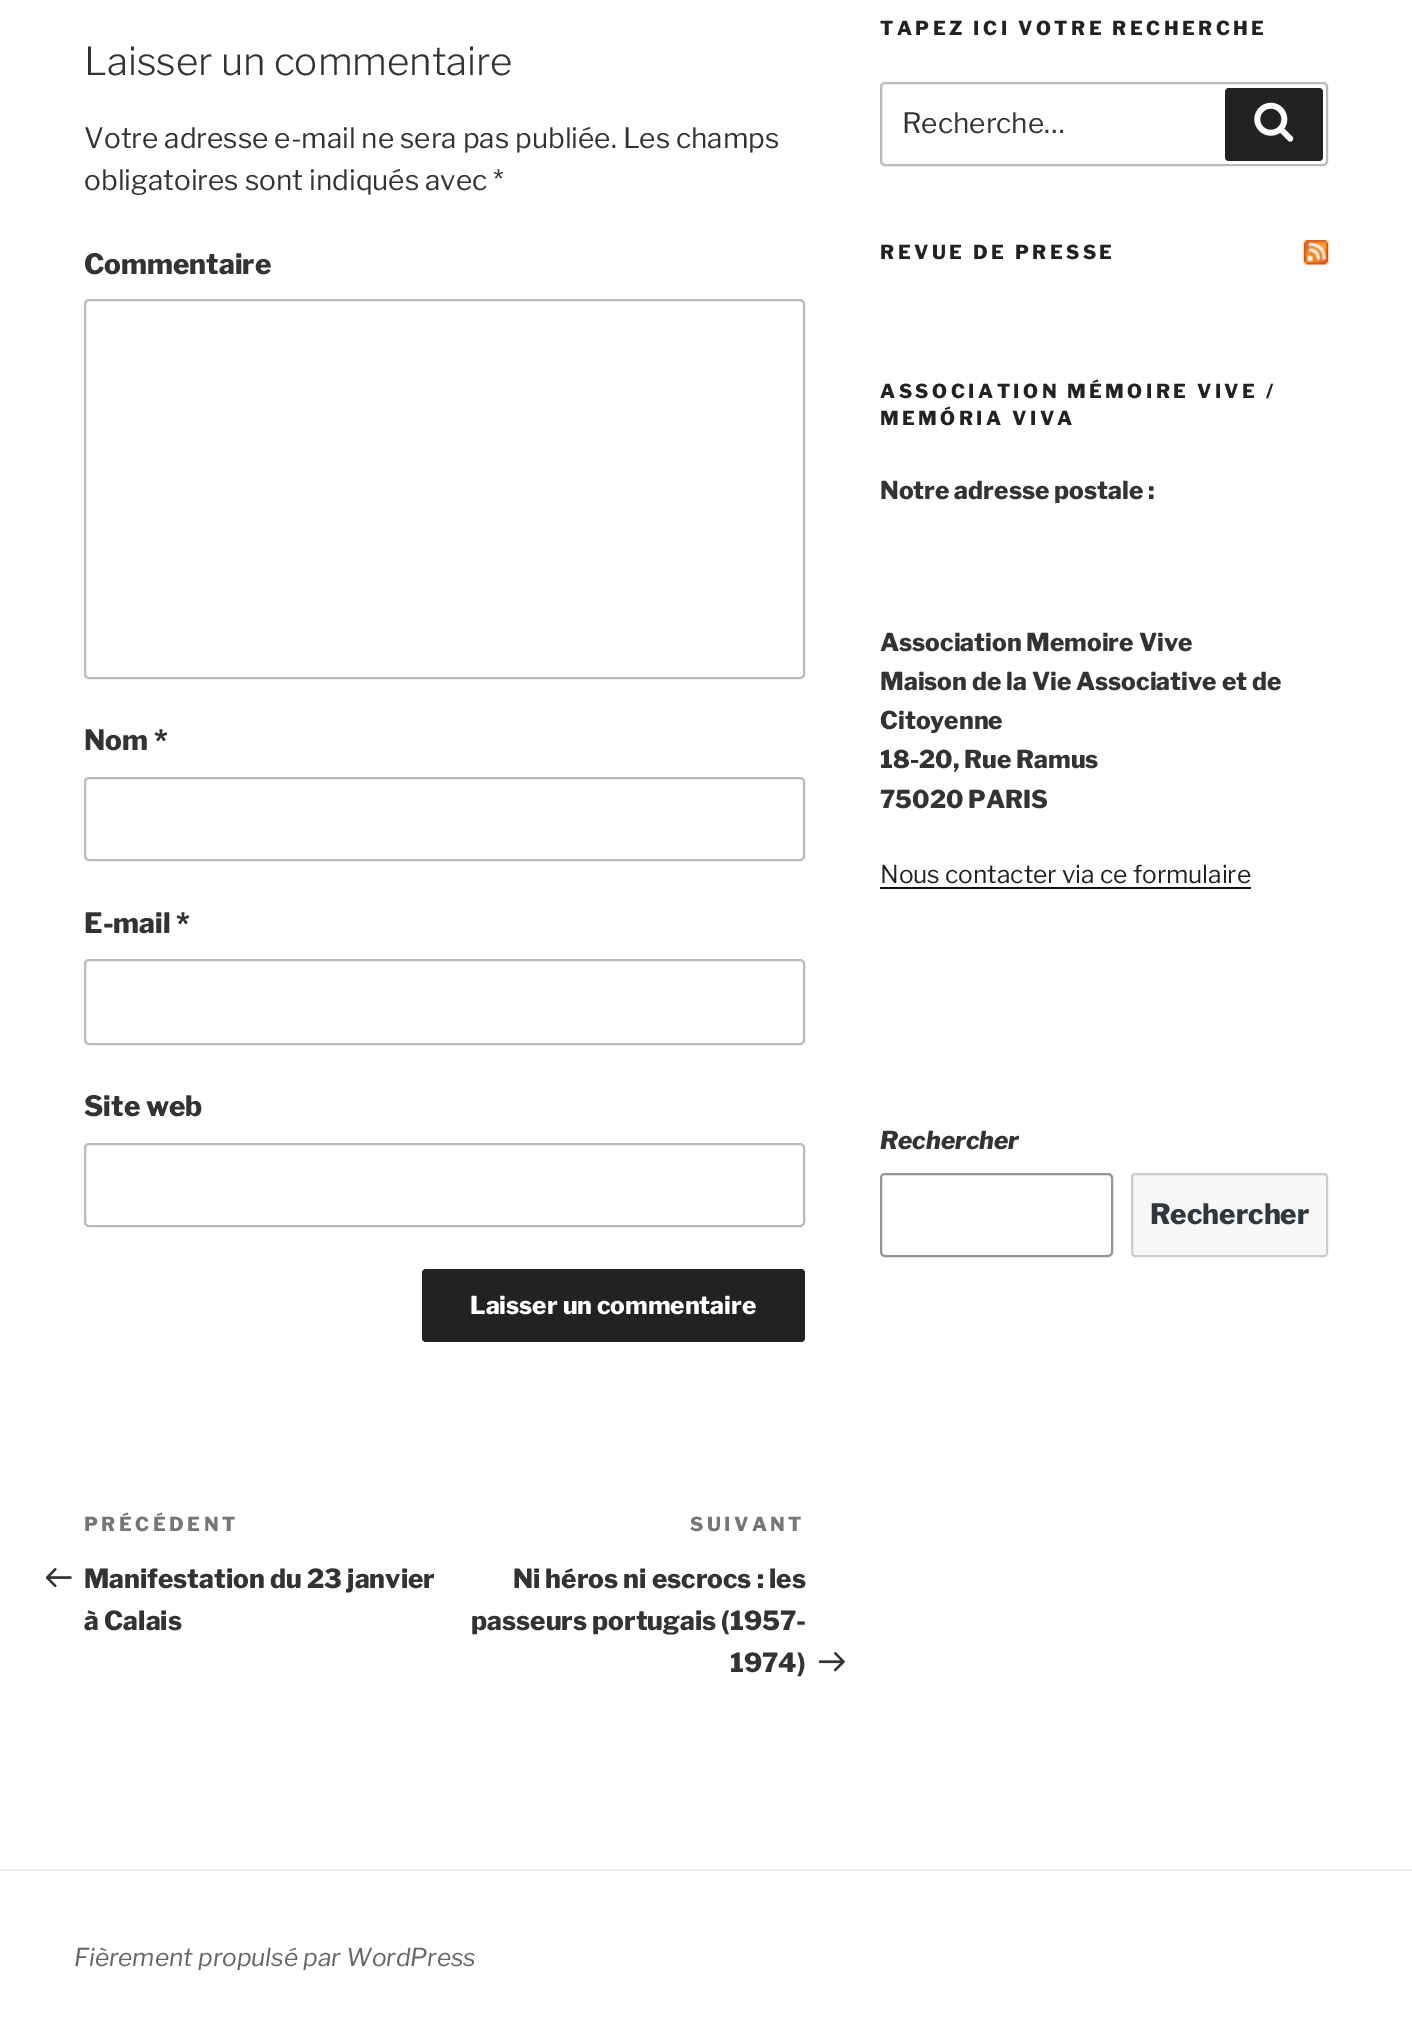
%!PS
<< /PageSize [1412 2038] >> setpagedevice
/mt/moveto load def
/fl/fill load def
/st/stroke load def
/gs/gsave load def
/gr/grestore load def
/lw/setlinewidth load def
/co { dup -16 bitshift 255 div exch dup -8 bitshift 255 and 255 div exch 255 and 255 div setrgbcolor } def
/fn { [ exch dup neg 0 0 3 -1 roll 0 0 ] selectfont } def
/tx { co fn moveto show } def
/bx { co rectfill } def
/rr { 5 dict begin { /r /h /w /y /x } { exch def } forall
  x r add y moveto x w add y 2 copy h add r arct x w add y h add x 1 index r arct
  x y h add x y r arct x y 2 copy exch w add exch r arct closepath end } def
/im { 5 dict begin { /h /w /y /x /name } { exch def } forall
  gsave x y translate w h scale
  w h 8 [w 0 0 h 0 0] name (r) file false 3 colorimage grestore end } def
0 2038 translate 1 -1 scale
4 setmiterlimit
0 0 1412 2038 16#FFFFFF bx
16#BBBBBB co
2 lw
85 300 719 378 4 rr st
85 778 719 82 4 rr st
85 960 719 84 4 rr st
85 1144 719 82 4 rr st
16#222222 co
422 1269 383 73 4 rr fl
(media/1.raw) 46 1567 26 21 im
(media/2.raw) 819 1651 26 21 im
16#BBBBBB co
881 83 446 82 4 rr st
16#222222 co
1225 88 98 73 4 rr fl
(media/3.raw) 1254 102 40 40 im
(media/4.raw) 1303 240 26 25 im
880 887 371 2 16#0F0F0F bx
16#949494 co
881 1174 231 82 4 rr st
16#F7F7F7 co
1132 1174 195 82 3 rr gs fl gr
16#CCCCCC co
st
0 1869 1412 2 16#EEEEEE bx
(Laisser un commentaire) 84 75 /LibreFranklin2-Thin 38.5 16#333333 tx
(Votre adresse e-mail ne sera pas publiée. Les champs) 84 148 /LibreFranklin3-Thin 28 16#333333 tx
(obligatoires sont indiqués avec *) 84 190 /LibreFranklin3-Thin 28 16#333333 tx
(Commentaire) 84 274 /LibreFranklin-Thin 28 16#333333 tx
(Nom *) 84 750 /LibreFranklin-Thin 28 16#333333 tx
(E-mail *) 84 933 /LibreFranklin-Thin 28 16#333333 tx
(Site web) 84 1116 /LibreFranklin-Thin 28 16#333333 tx
(Laisser un commentaire) 470 1314 /LibreFranklin-Thin 24.5 16#FFFFFF tx
/LibreFranklin-Thin 19.25 fn
16#767676 co
84 1531 mt 3.5 0 (PRÉCÉDENT) ashow
(Manifestation du 23 janvier) 84 1588 /LibreFranklin-Thin 26.25 16#333333 tx
(à Calais) 84 1630 /LibreFranklin-Thin 26.25 16#333333 tx
/LibreFranklin-Thin 19.25 fn
16#767676 co
690 1531 mt 3.5 0 (SUIVANT) ashow
(Ni héros ni escrocs : les) 513 1588 /LibreFranklin-Thin 26.25 16#333333 tx
(passeurs portugais \(1957-) 471 1630 /LibreFranklin-Thin 26.25 16#333333 tx
(1974\)) 730 1672 /LibreFranklin-Thin 26.25 16#333333 tx
/LibreFranklin-Thin 19.25 fn
16#222222 co
880 35 mt 3.5 0 (TAPEZ ICI VOTRE RECHERCHE) ashow
(Recherche…) 902 133 /LibreFranklin3-Thin 28 16#333333 tx
/LibreFranklin-Thin 19.25 fn
16#222222 co
880 259 mt 3.5 0 (REVUE DE PRESSE) ashow
880 398 mt 3.5 0 (ASSOCIATION MÉMOIRE VIVE /) ashow
880 425 mt 3.5 0 (MEMÓRIA VIVA) ashow
(Notre adresse postale :) 880 499 /LibreFranklin-Thin 24.5 16#333333 tx
(Association Memoire Vive) 880 651 /LibreFranklin-Thin 24.5 16#333333 tx
(Maison de la Vie Associative et de) 880 690 /LibreFranklin-Thin 24.5 16#333333 tx
(Citoyenne) 880 729 /LibreFranklin-Thin 24.5 16#333333 tx
(18-20, Rue Ramus) 880 768 /LibreFranklin-Thin 24.5 16#333333 tx
(75020 PARIS) 880 808 /LibreFranklin-Thin 24.5 16#333333 tx
(Nous contacter via ce formulaire) 880 883 /LibreFranklin3-Thin 24.5 16#222222 tx
(Rechercher) 880 1149 /LibreFranklin-ThinItalic 24.5 16#333333 tx
(Rechercher) 1150 1224 /LibreFranklin-Thin 28 16#32373C tx
(Fièrement propulsé par WordPress) 74 1966 /LibreFranklin2-ThinItalic 24.5 16#666666 tx
showpage
